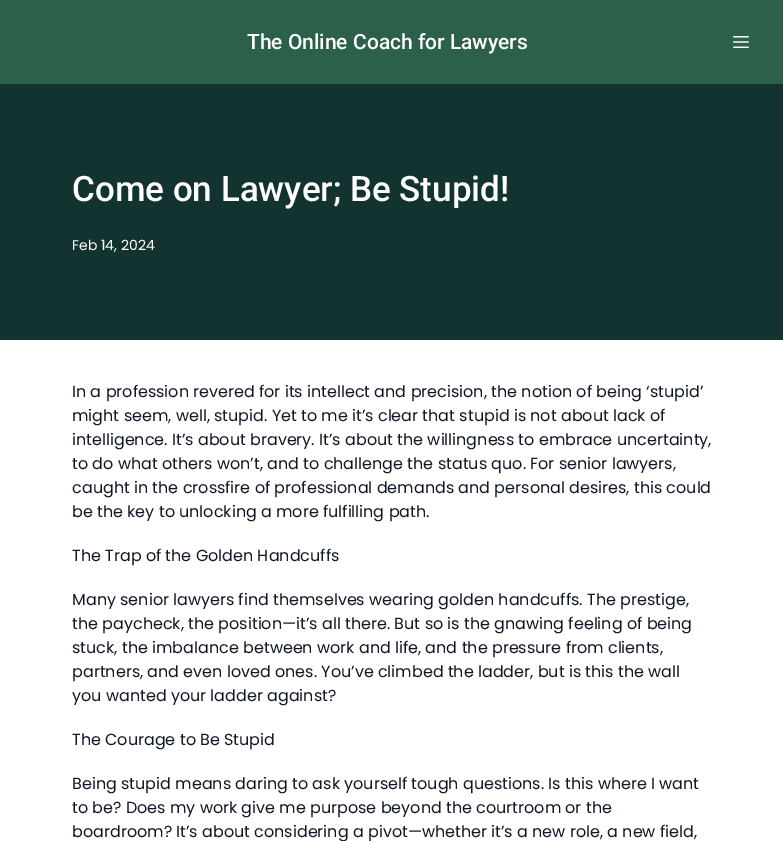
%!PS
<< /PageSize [783 841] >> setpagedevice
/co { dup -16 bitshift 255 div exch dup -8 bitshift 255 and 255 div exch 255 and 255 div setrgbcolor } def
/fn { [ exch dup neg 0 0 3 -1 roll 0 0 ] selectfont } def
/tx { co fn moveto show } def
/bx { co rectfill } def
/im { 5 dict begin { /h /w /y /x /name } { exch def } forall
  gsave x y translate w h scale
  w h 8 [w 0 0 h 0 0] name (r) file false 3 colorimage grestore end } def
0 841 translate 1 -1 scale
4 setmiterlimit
0 0 783 841 16#FFFFFF bx
0 0 783 84 16#2D604B bx
(media/1.raw) 733 36 16 12 im
0 84 783 256 16#133330 bx
(The Online Coach for Lawyers) 247 49 /Roboto-Medium 21 16#FFFFFF tx
(Come on Lawyer; Be Stupid!) 72 201 /Roboto-Medium 35 16#FFFFFF tx
(Feb 14, 2024) 72 250 /Poppins-Regular 14 16#FFFFFF tx
(In a profession revered for its intellect and precision, the notion of being ‘stupid’) 72 397 /Poppins-Regular 16 16#111827 tx
(might seem, well, stupid. Yet to me it’s clear that stupid is not about lack of) 72 421 /Poppins-Regular 16 16#111827 tx
(intelligence. It’s about bravery. It’s about the willingness to embrace uncertainty,) 72 445 /Poppins-Regular 16 16#111827 tx
(to do what others won’t, and to challenge the status quo. For senior lawyers,) 72 469 /Poppins-Regular 16 16#111827 tx
(caught in the crossfire of professional demands and personal desires, this could) 72 493 /Poppins-Regular 16 16#111827 tx
(be the key to unlocking a more fulfilling path.) 72 517 /Poppins-Regular 16 16#111827 tx
(The Trap of the Golden Handcuffs) 72 561 /Poppins-Regular 16 16#111827 tx
(Many senior lawyers find themselves wearing golden handcuffs. The prestige,) 72 605 /Poppins-Regular 16 16#111827 tx
(the paycheck, the position—it’s all there. But so is the gnawing feeling of being) 72 629 /Poppins-Regular 16 16#111827 tx
(stuck, the imbalance between work and life, and the pressure from clients,) 72 653 /Poppins-Regular 16 16#111827 tx
(partners, and even loved ones. You’ve climbed the ladder, but is this the wall) 72 677 /Poppins-Regular 16 16#111827 tx
(you wanted your ladder against?) 72 701 /Poppins-Regular 16 16#111827 tx
(The Courage to Be Stupid) 72 745 /Poppins-Regular 16 16#111827 tx
(Being stupid means daring to ask yourself tough questions. Is this where I want) 72 789 /Poppins-Regular 16 16#111827 tx
(to be? Does my work give me purpose beyond the courtroom or the) 72 813 /Poppins-Regular 16 16#111827 tx
(boardroom? It’s about considering a pivot—whether it’s a new role, a new field,) 72 837 /Poppins-Regular 16 16#111827 tx
showpage
